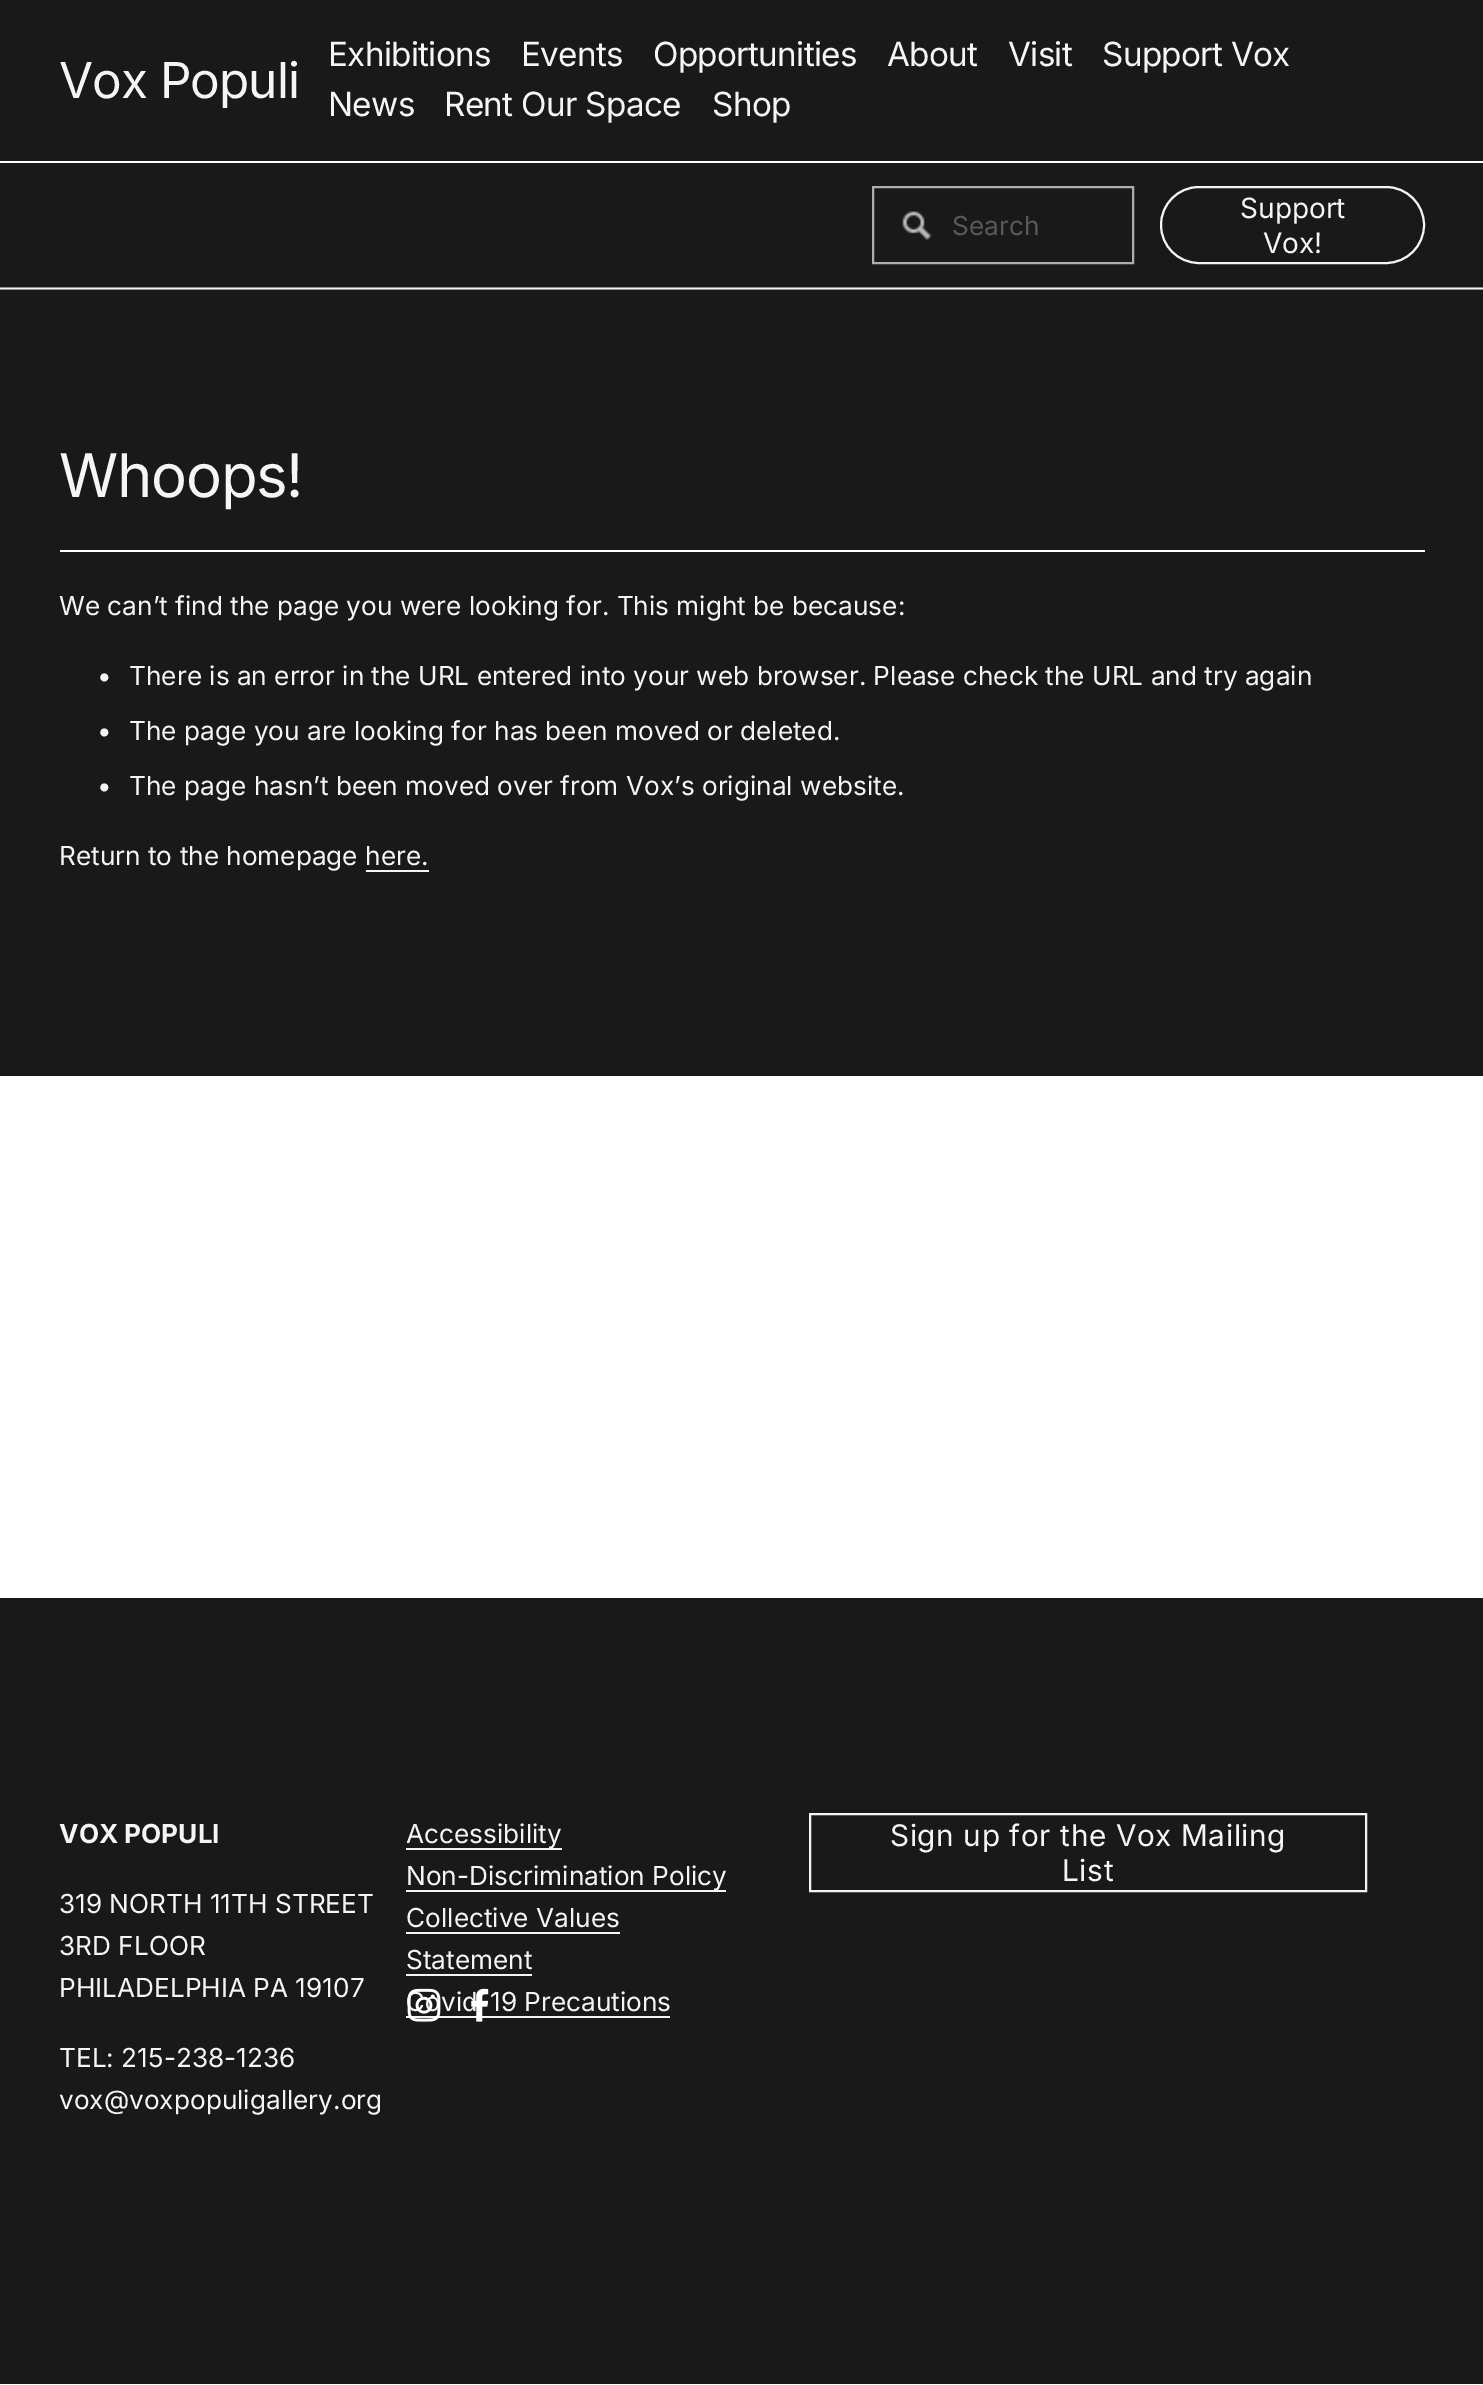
%!PS
<< /PageSize [1483 2385] >> setpagedevice
/mt/moveto load def
/li/lineto load def
/st/stroke load def
/lw/setlinewidth load def
/co { dup -16 bitshift 255 div exch dup -8 bitshift 255 and 255 div exch 255 and 255 div setrgbcolor } def
/fn { [ exch dup neg 0 0 3 -1 roll 0 0 ] selectfont } def
/tx { co fn moveto show } def
/bx { co rectfill } def
/rr { 5 dict begin { /r /h /w /y /x } { exch def } forall
  x r add y moveto x w add y 2 copy h add r arct x w add y h add x 1 index r arct
  x y h add x y r arct x y 2 copy exch w add exch r arct closepath end } def
/im { 5 dict begin { /h /w /y /x /name } { exch def } forall
  gsave x y translate w h scale
  w h 8 [w 0 0 h 0 0] name (r) file false 3 colorimage grestore end } def
0 2385 translate 1 -1 scale
4 setmiterlimit
0 0 1483 2385 16#FFFFFF bx
0 0 1483 288 16#191919 bx
0 161 1483 2 16#FFFFFF bx
(media/1.raw) 902 211 30 30 im
16#AEAEAE co
2 lw
873 187 260 76 rectstroke
16#F5F5F5 co
1161 187 263 76 38 rr st
0 289 1483 787 16#191919 bx
16#F5F5F5 co
1.8 lw
2 setlinecap
-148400 144.5 mt -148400 433 li 0 288.5 mt 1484 288.5 li st
60 550 1365 2 16#FFFFFF bx
366 870 63 2 16#F5F5F5 bx
0 1598 1483 787 16#191919 bx
406 1848 156 2 16#F5F5F5 bx
406 1890 320 2 16#F5F5F5 bx
406 1932 214 2 16#F5F5F5 bx
406 1974 126 2 16#F5F5F5 bx
406 2016 264 2 16#F5F5F5 bx
2 lw
0 setlinecap
810 1814 556 77 rectstroke
16#FFFFFF co
1.8 lw
2 setlinecap
-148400 1991.5 mt -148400 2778.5 li 0 2385 mt 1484 2385 li st
/Inter-Regular 49.5 fn
16#F5F5F5 co
59 98 mt -1 0 (Vox Populi) ashow
/Inter-Regular 33.25 fn
328 66 mt -.7 0 (Exhibitions) ashow
521 66 mt -.7 0 (Events) ashow
653 66 mt -.7 0 (Opportunities) ashow
887 66 mt -.7 0 (About) ashow
1008 66 mt -.7 0 (Visit) ashow
1102 66 mt -.7 0 (Support Vox) ashow
328 116 mt -.7 0 (News) ashow
444 116 mt -.7 0 (Rent Our Space) ashow
712 116 mt -.7 0 (Shop) ashow
(Search) 952 235 /Inter-Regular 26.2 16#595959 tx
(Support) 1240 218 /Inter-Regular 28 16#F5F5F5 tx
(Vox!) 1263 253 /Inter-Regular 28 16#F5F5F5 tx
/Inter-Regular 60 fn
59 497 mt -1.25 0 (Whoops!) ashow
(We can’t find the page you were looking for. This might be because:) 59 615 /Inter-Regular 26.2 16#F5F5F5 tx
(•) 97 685 /Inter-Regular 26.2 16#F5F5F5 tx
(There is an error in the URL entered into your web browser. Please check the URL and try again) 129 685 /Inter-Regular 26.2 16#F5F5F5 tx
(•) 97 740 /Inter-Regular 26.2 16#F5F5F5 tx
(The page you are looking for has been moved or deleted.) 129 740 /Inter-Regular 26.2 16#F5F5F5 tx
(•) 97 795 /Inter-Regular 26.2 16#F5F5F5 tx
(The page hasn’t been moved over from Vox’s original website.) 129 795 /Inter-Regular 26.2 16#F5F5F5 tx
(Return to the homepage here.) 59 865 /Inter-Regular 26.2 16#F5F5F5 tx
(VOX POPULI) 59 1843 /Inter-Bold 26.2 16#F5F5F5 tx
(319 NORTH 11TH STREET) 59 1913 /Inter-Regular 26.2 16#F5F5F5 tx
(3RD FLOOR) 59 1955 /Inter-Regular 26.2 16#F5F5F5 tx
(PHILADELPHIA PA 19107) 59 1997 /Inter-Regular 26.2 16#F5F5F5 tx
(TEL: 215-238-1236) 59 2067 /Inter-Regular 26.2 16#F5F5F5 tx
(vox@voxpopuligallery.org) 59 2109 /Inter-Regular 26.2 16#F5F5F5 tx
(Accessibility) 406 1843 /Inter-Regular 26.2 16#F5F5F5 tx
(Non-Discrimination Policy) 406 1885 /Inter-Regular 26.2 16#F5F5F5 tx
(Collective Values) 406 1927 /Inter-Regular 26.2 16#F5F5F5 tx
(Statement) 406 1969 /Inter-Regular 26.2 16#F5F5F5 tx
(Covid-19 Precautions) 406 2011 /Inter-Regular 26.2 16#F5F5F5 tx
/Inter-Regular 29.75 fn
890 1846 mt .6 0 (Sign up for the Vox Mailing) ashow
1062 1881 mt .6 0 (List) ashow
(media/2.raw) 407 1988 34 34 im
(media/3.raw) 471 1988 18 34 im
showpage
